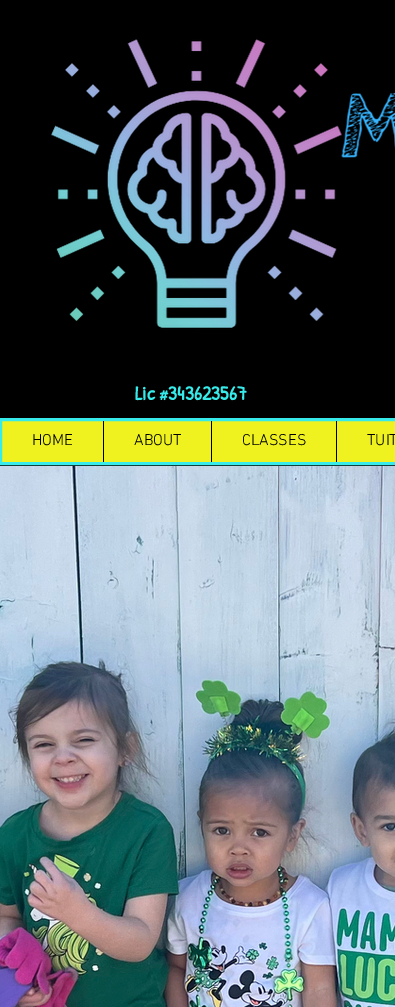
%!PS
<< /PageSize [395 1007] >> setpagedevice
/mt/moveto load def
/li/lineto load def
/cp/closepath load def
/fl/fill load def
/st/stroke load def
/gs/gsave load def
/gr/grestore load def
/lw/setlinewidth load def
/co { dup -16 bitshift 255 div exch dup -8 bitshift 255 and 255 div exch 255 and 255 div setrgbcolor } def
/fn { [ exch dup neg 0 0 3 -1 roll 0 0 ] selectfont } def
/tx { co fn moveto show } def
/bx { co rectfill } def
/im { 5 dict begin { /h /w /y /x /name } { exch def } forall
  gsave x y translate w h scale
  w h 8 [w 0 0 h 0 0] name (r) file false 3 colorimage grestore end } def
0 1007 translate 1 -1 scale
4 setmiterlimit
0 0 395 1007 16#000000 bx
(media/1.raw) 51 39 344 291 im
16#EFF21F co
.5 419.5 mt 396.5 419.5 li 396.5 463.5 li .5 463.5 li cp gs fl gr
16#38EBEB co
3 lw
st
103 421 1 41 16#000000 bx
211 421 1 41 16#000000 bx
336 421 1 41 16#000000 bx
(media/2.raw) 0 466 395 541 im
(Lic #343623567) 135 400 /PatrickHand-Bold 20 16#38EBEB tx
(HOME) 32 445 /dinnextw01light-Light 16 16#000000 tx
(ABOUT) 134 445 /dinnextw01light-Light 16 16#000000 tx
(CLASSES) 242 445 /dinnextw01light-Light 16 16#000000 tx
(TUIT) 367 445 /dinnextw01light-Light 16 16#000000 tx
showpage
